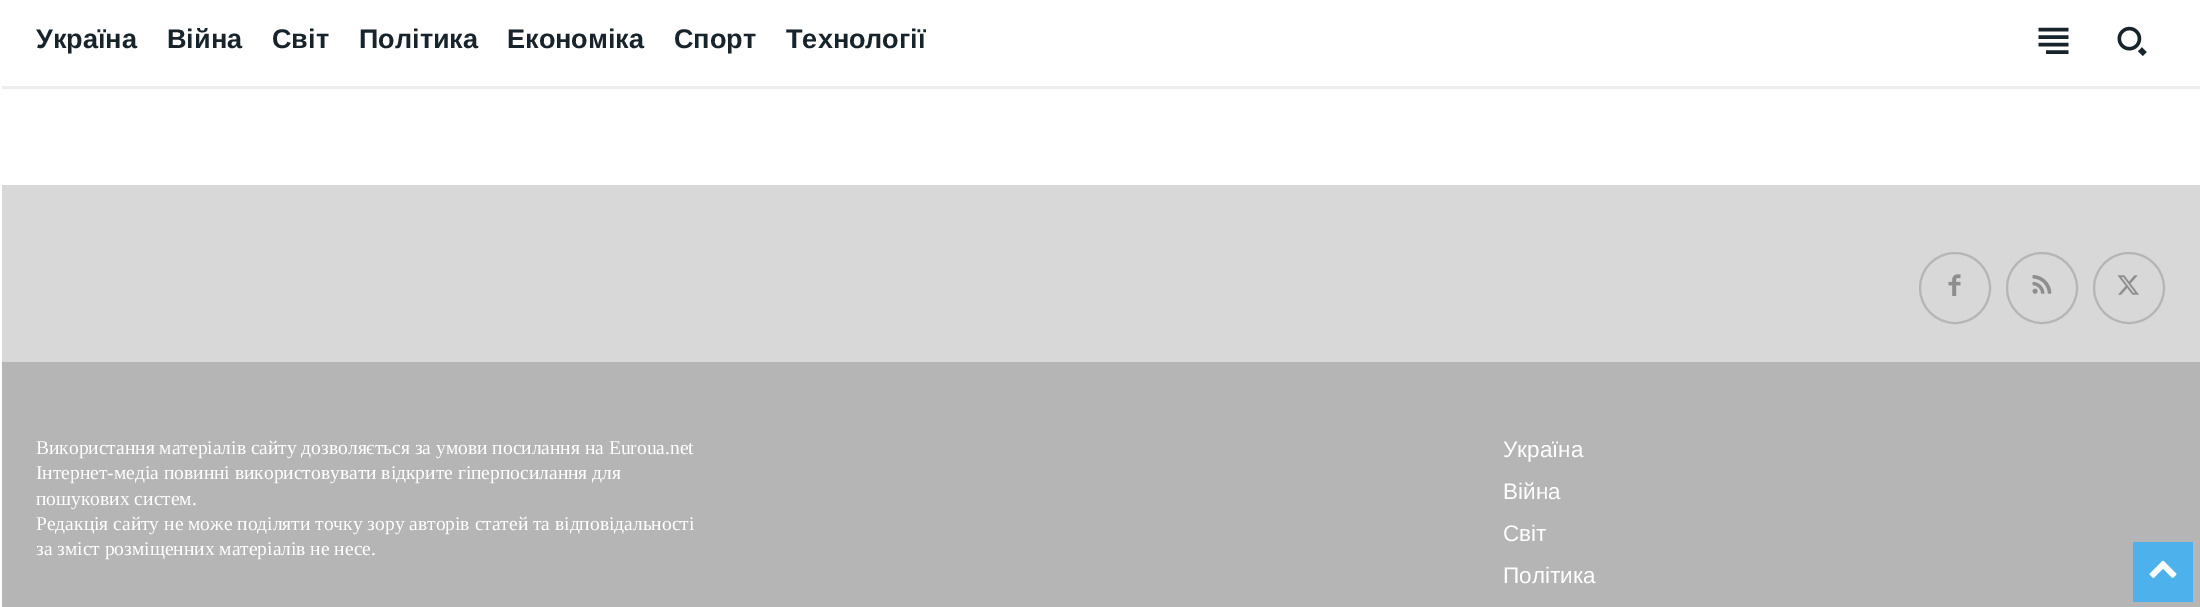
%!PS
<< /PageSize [2200 607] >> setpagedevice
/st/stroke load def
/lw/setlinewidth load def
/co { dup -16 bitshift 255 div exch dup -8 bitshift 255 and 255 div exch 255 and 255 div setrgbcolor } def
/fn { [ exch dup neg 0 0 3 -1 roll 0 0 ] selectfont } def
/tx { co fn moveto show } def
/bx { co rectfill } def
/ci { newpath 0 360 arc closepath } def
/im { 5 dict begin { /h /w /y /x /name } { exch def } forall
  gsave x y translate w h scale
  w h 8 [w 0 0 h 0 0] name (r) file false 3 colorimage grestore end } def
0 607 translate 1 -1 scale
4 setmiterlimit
0 0 2200 607 16#FFFFFF bx
(media/1.raw) 2038 27 31 27 im
(media/2.raw) 2117 26 30 30 im
2 86 2198 3 16#EDEEEE bx
2 185 2198 177 16#D8D8D8 bx
16#B5B5B5 co
2 lw
1955 288 35 ci st
(media/3.raw) 1948 274 13 22 im
2042 288 35 ci st
(media/4.raw) 2032 275 20 19 im
2129 288 35 ci st
(media/5.raw) 2117 275 22 20 im
2 362 2198 245 16#B5B5B5 bx
2133 542 60 60 16#4DB2EC bx
(media/6.raw) 2149 560 28 18 im
(Україна) 36 48 /LiberationSans-Bold 27 16#18242C tx
(Війна) 167 48 /LiberationSans-Bold 27 16#18242C tx
(Світ) 272 48 /LiberationSans-Bold 27 16#18242C tx
(Політика) 359 48 /LiberationSans-Bold 27 16#18242C tx
(Економіка) 507 48 /LiberationSans-Bold 27 16#18242C tx
(Спорт) 674 48 /LiberationSans-Bold 27 16#18242C tx
(Технології) 786 48 /LiberationSans-Bold 27 16#18242C tx
(Використання матеріалів сайту дозволяється за умови посилання на Euroua.net) 36 454 /LiberationSerif-Regular 19.5 16#FFFFFF tx
(Інтернет-медіа повинні використовувати відкрите гіперпосилання для) 36 479 /LiberationSerif-Regular 19.5 16#FFFFFF tx
(пошукових систем.) 36 505 /LiberationSerif-Regular 19.5 16#FFFFFF tx
(Редакція сайту не може поділяти точку зору авторів статей та відповідальності) 36 530 /LiberationSerif-Regular 19.5 16#FFFFFF tx
(за зміст розміщенних матеріалів не несе.) 36 555 /LiberationSerif-Regular 19.5 16#FFFFFF tx
(Україна) 1503 457 /LiberationSans-Regular 22.5 16#FFFFFF tx
(Війна) 1503 499 /LiberationSans-Regular 22.5 16#FFFFFF tx
(Світ) 1503 541 /LiberationSans-Regular 22.5 16#FFFFFF tx
(Політика) 1503 583 /LiberationSans-Regular 22.5 16#FFFFFF tx
showpage
